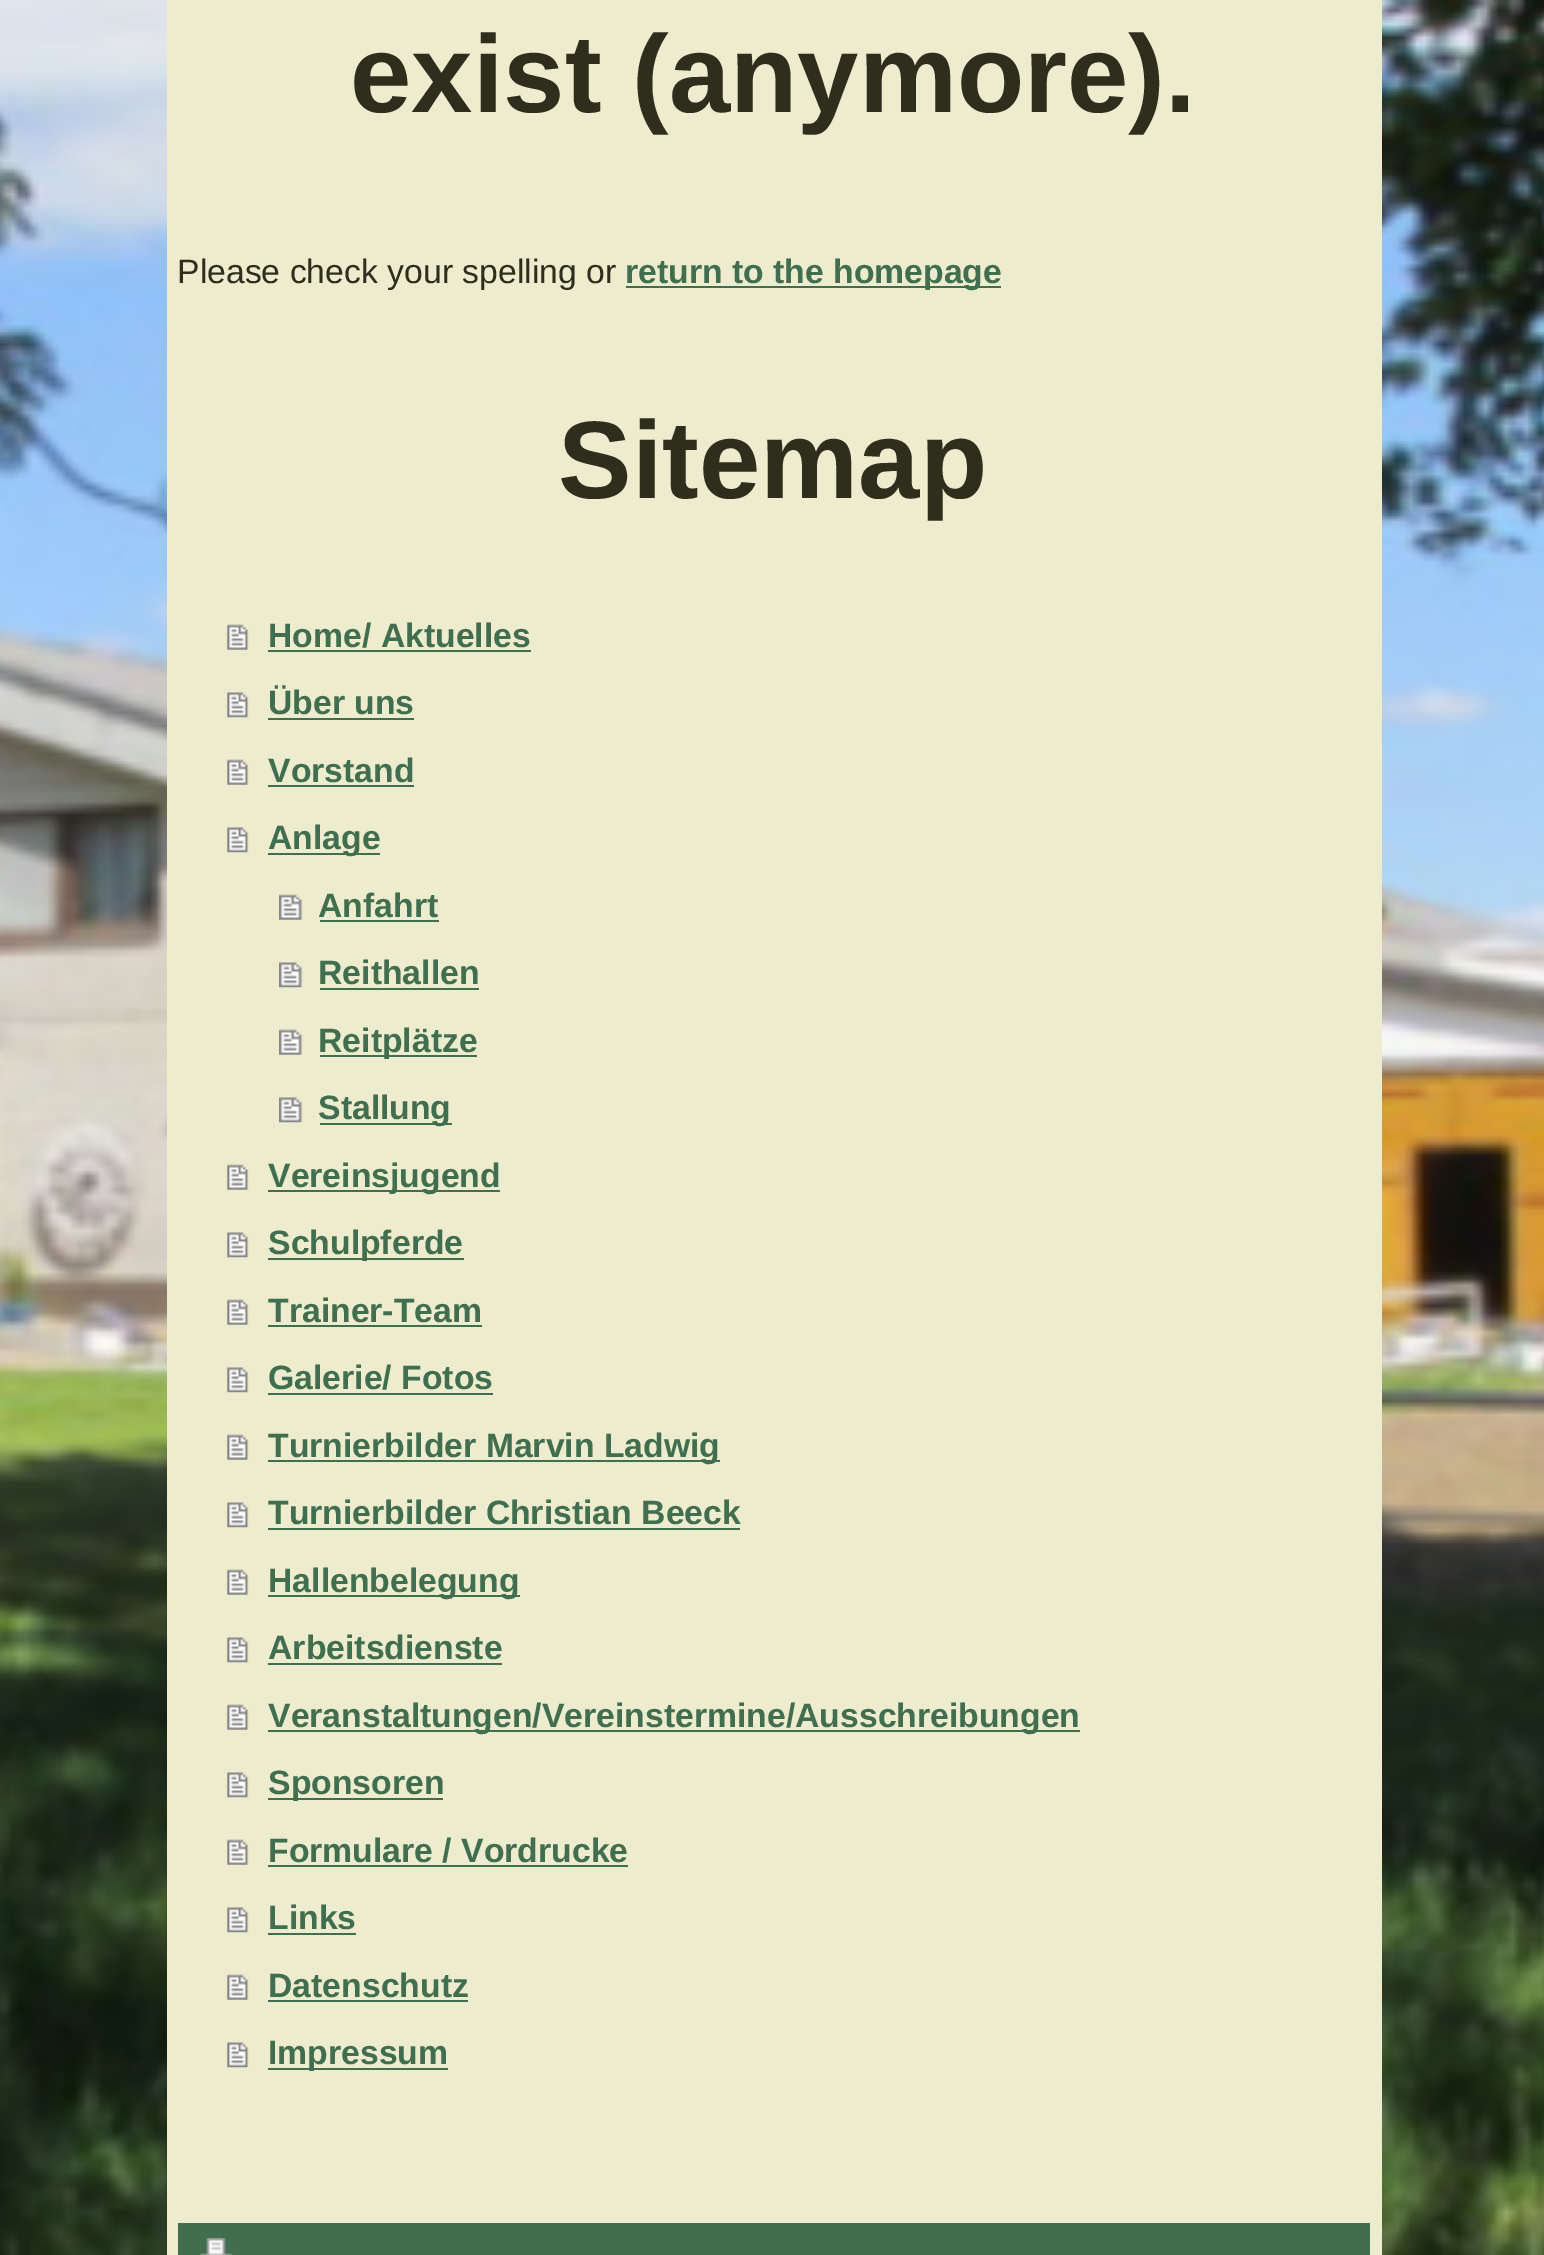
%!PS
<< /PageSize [1544 2255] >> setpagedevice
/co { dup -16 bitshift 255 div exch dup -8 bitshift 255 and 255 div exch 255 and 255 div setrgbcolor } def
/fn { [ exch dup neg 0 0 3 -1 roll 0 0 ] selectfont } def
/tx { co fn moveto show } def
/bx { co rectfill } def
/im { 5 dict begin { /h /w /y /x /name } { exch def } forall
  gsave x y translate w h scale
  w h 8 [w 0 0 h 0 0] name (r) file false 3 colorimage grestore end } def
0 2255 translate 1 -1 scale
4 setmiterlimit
0 0 1544 2255 16#FFFFFF bx
(media/1.raw) 0 0 1544 2255 im
167 0 1215 2255 16#EDECCE bx
626 286 375 2 16#406E4E bx
(media/2.raw) 227 624 22 26 im
268 650 263 2 16#406E4E bx
(media/3.raw) 227 692 22 26 im
268 718 146 2 16#406E4E bx
(media/2.raw) 227 759 22 26 im
268 785 146 2 16#406E4E bx
(media/3.raw) 227 827 22 26 im
268 853 112 2 16#406E4E bx
(media/4.raw) 279 894 24 26 im
320 920 119 2 16#406E4E bx
(media/5.raw) 279 962 24 26 im
320 988 159 2 16#406E4E bx
(media/6.raw) 279 1029 24 26 im
320 1055 157 2 16#406E4E bx
(media/5.raw) 279 1097 24 26 im
320 1123 132 2 16#406E4E bx
(media/2.raw) 227 1164 22 26 im
268 1190 232 2 16#406E4E bx
(media/3.raw) 227 1232 22 26 im
268 1258 196 2 16#406E4E bx
(media/7.raw) 227 1299 22 26 im
268 1325 214 2 16#406E4E bx
(media/3.raw) 227 1367 22 26 im
268 1393 225 2 16#406E4E bx
(media/2.raw) 227 1434 22 26 im
268 1460 452 2 16#406E4E bx
(media/3.raw) 227 1502 22 26 im
268 1528 472 2 16#406E4E bx
(media/8.raw) 227 1569 22 26 im
268 1595 252 2 16#406E4E bx
(media/3.raw) 227 1637 22 26 im
268 1663 234 2 16#406E4E bx
(media/2.raw) 227 1704 22 26 im
268 1730 812 2 16#406E4E bx
(media/3.raw) 227 1772 22 26 im
268 1798 175 2 16#406E4E bx
(media/2.raw) 227 1839 22 26 im
268 1865 360 2 16#406E4E bx
(media/3.raw) 227 1907 22 26 im
268 1933 88 2 16#406E4E bx
(media/2.raw) 227 1974 22 26 im
268 2000 200 2 16#406E4E bx
(media/3.raw) 227 2042 22 26 im
268 2068 180 2 16#406E4E bx
178 2223 1192 32 16#406E4E bx
(media/9.raw) 200 2238 33 17 im
(exist \(anymore\).) 350 112 /LiberationSans-Bold 110.25 16#2F2E1D tx
(Please check your spelling or) 177 283 /LiberationSans-Regular 33.75 16#2F2E1D tx
(return to the homepage) 625 283 /LiberationSans-Bold 33.75 16#406E4E tx
(Sitemap) 558 498 /LiberationSans-Bold 110.25 16#2F2E1D tx
(Home/ Aktuelles) 268 647 /LiberationSans-Bold 33.75 16#406E4E tx
(Über uns) 268 714 /LiberationSans-Bold 33.75 16#406E4E tx
(Vorstand) 268 782 /LiberationSans-Bold 33.75 16#406E4E tx
(Anlage) 268 849 /LiberationSans-Bold 33.75 16#406E4E tx
(Anfahrt) 318 917 /LiberationSans-Bold 33.75 16#406E4E tx
(Reithallen) 318 984 /LiberationSans-Bold 33.75 16#406E4E tx
(Reitplätze) 318 1052 /LiberationSans-Bold 33.75 16#406E4E tx
(Stallung) 318 1119 /LiberationSans-Bold 33.75 16#406E4E tx
(Vereinsjugend) 268 1187 /LiberationSans-Bold 33.75 16#406E4E tx
(Schulpferde) 268 1254 /LiberationSans-Bold 33.75 16#406E4E tx
(Trainer-Team) 268 1322 /LiberationSans-Bold 33.75 16#406E4E tx
(Galerie/ Fotos) 268 1389 /LiberationSans-Bold 33.75 16#406E4E tx
(Turnierbilder Marvin Ladwig) 268 1457 /LiberationSans-Bold 33.75 16#406E4E tx
(Turnierbilder Christian Beeck) 268 1524 /LiberationSans-Bold 33.75 16#406E4E tx
(Hallenbelegung) 268 1592 /LiberationSans-Bold 33.75 16#406E4E tx
(Arbeitsdienste) 268 1659 /LiberationSans-Bold 33.75 16#406E4E tx
(Veranstaltungen/Vereinstermine/Ausschreibungen) 268 1727 /LiberationSans-Bold 33.75 16#406E4E tx
(Sponsoren) 268 1794 /LiberationSans-Bold 33.75 16#406E4E tx
(Formulare / Vordrucke) 268 1862 /LiberationSans-Bold 33.75 16#406E4E tx
(Links) 268 1929 /LiberationSans-Bold 33.75 16#406E4E tx
(Datenschutz) 268 1997 /LiberationSans-Bold 33.75 16#406E4E tx
(Impressum) 268 2064 /LiberationSans-Bold 33.75 16#406E4E tx
showpage
